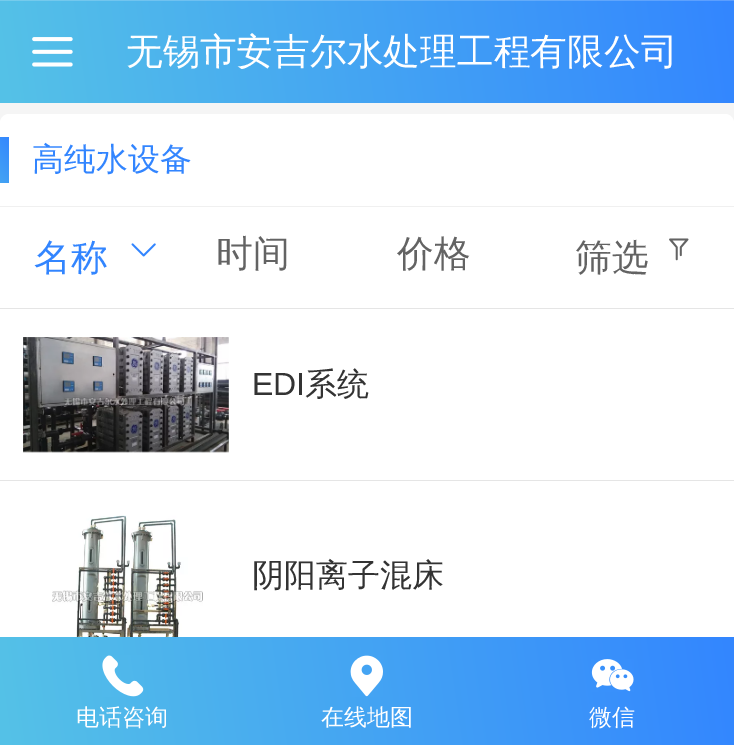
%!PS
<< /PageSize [734 745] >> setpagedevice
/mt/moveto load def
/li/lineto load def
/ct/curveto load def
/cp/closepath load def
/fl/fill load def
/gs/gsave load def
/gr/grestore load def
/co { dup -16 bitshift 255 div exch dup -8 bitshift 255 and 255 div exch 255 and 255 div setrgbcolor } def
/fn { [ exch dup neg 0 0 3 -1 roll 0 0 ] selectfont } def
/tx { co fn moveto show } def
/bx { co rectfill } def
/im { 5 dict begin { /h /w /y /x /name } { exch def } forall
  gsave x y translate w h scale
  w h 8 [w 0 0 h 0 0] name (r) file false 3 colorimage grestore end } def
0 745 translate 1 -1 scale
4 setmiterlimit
0 0 734 745 16#F5F5F5 bx
gs 0 1 mt 734 1 li 734 103 li 0 103 li cp clip newpath
<< /ShadingType 2 /ColorSpace /DeviceRGB /Coords [0 103 734 0] /Extend [true true] /Function << /FunctionType 2 /Domain [0 1] /C0 [.333 .761 .906] /C1 [.2 .525 1] /N 1 >> >> shfill gr
(media/1.raw) 32 37 41 30 im
gs 0 0 mt 734 0 li 734 1 li 0 1 li cp clip newpath
<< /ShadingType 2 /ColorSpace /DeviceRGB /Coords [0 103 734 0] /Extend [true true] /Function << /FunctionType 2 /Domain [0 1] /C0 [.467 .808 .925] /C1 [.361 .62 1] /N 1 >> >> shfill gr
16#FFFFFF co
9 114 mt 725 114 li 730 114 734 118 734 123 ct 734 207 li 0 207 li 0 123 li 0 118 4 114 9 114 ct cp fl
0 206 734 1 16#F0F0F0 bx
gs 0 137 mt 9 137 li 9 183 li 0 183 li cp clip newpath
<< /ShadingType 2 /ColorSpace /DeviceRGB /Coords [-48 183 11 137] /Extend [true true] /Function << /FunctionType 2 /Domain [0 1] /C0 [.333 .761 .906] /C1 [.2 .525 1] /N 1 >> >> shfill gr
0 207 734 430 16#FFFFFF bx
(media/2.raw) 131 243 25 14 im
(media/3.raw) 669 238 20 23 im
0 308 734 1 16#E5E5E5 bx
(media/4.raw) 23 337 206 116 im
0 480 734 1 16#E5E5E5 bx
(media/5.raw) 52 515 151 122 im
gs 0 637 mt 734 637 li 734 745 li 0 745 li cp clip newpath
<< /ShadingType 2 /ColorSpace /DeviceRGB /Coords [0 745 734 637] /Extend [true true] /Function << /FunctionType 2 /Domain [0 1] /C0 [.333 .761 .906] /C1 [.2 .525 1] /N 1 >> >> shfill gr
(media/6.raw) 102 655 42 42 im
(media/7.raw) 350 655 33 42 im
(media/8.raw) 591 659 43 33 im
(无锡市安吉尔水处理工程有限公司) 126 64 /WenQuanYiZenHei-Medium 36.75 16#FFFFFF tx
(高纯水设备) 32 170 /WenQuanYiZenHei-Medium 32 16#3285FF tx
(名称) 34 270 /WenQuanYiZenHei-Medium 36.75 16#3285FF tx
(时间) 216 266 /WenQuanYiZenHei-Medium 36.75 16#636363 tx
(价格) 397 266 /WenQuanYiZenHei-Medium 36.75 16#636363 tx
(筛选) 575 270 /WenQuanYiZenHei-Medium 36.75 16#636363 tx
(EDI) 252 395 /LiberationSans-Regular 32 16#333333 tx
(系统) 305 395 /WenQuanYiZenHei-Medium 32 16#333333 tx
(阴阳离子混床) 252 586 /WenQuanYiZenHei-Medium 32 16#333333 tx
(电话咨询) 76 725 /WenQuanYiZenHei-Medium 23 16#FFFFFF tx
(在线地图) 321 725 /WenQuanYiZenHei-Medium 23 16#FFFFFF tx
(微信) 589 725 /WenQuanYiZenHei-Medium 23 16#FFFFFF tx
showpage
